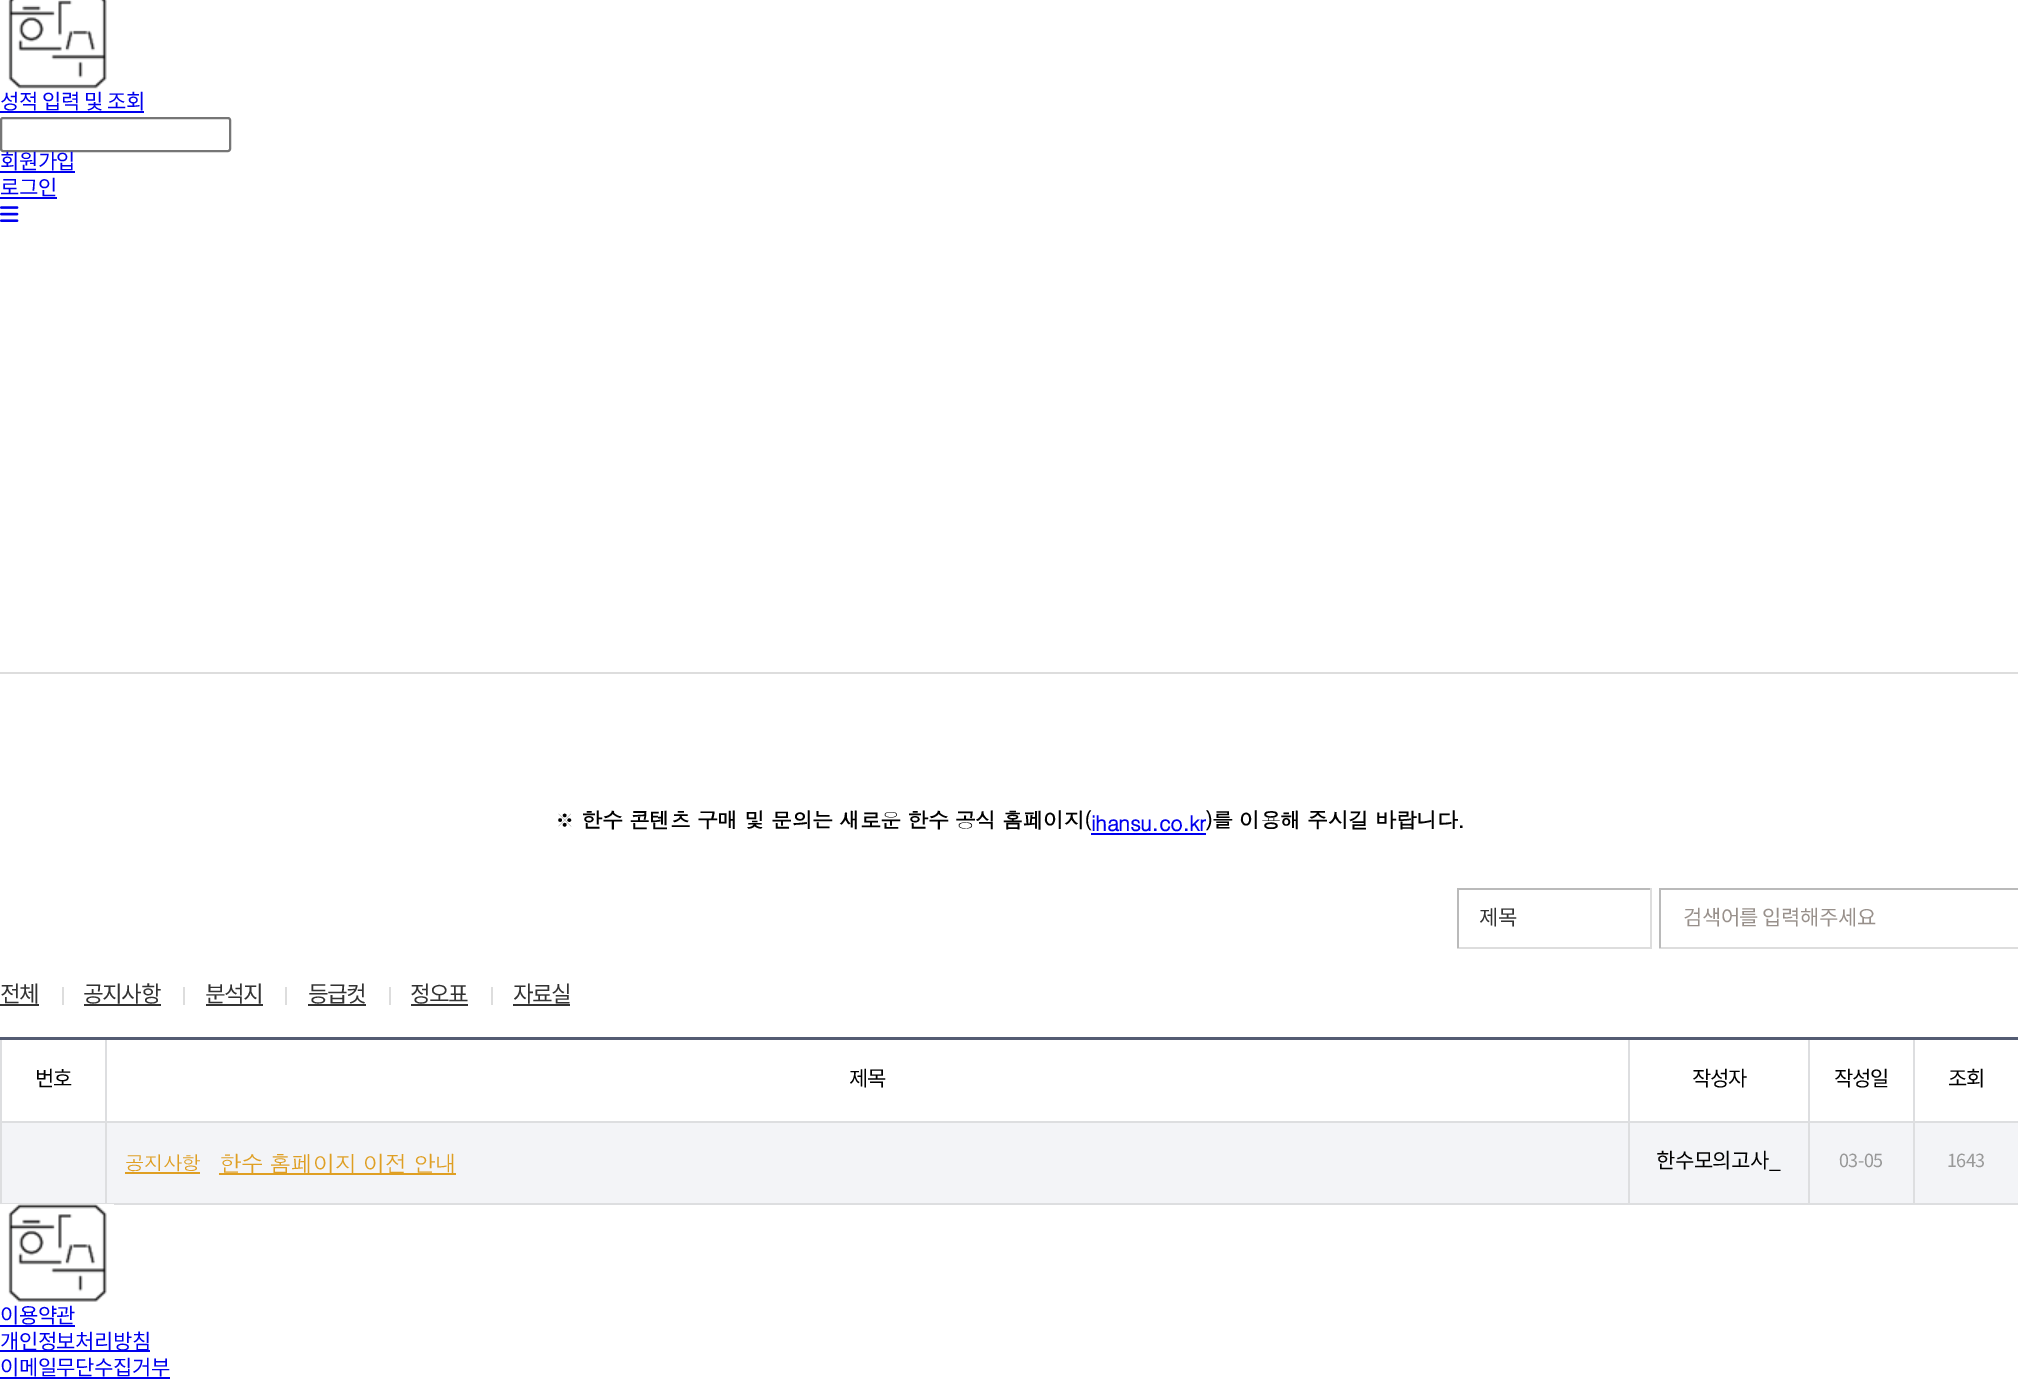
%!PS
<< /PageSize [2018 1388] >> setpagedevice
/mt/moveto load def
/st/stroke load def
/lw/setlinewidth load def
/co { dup -16 bitshift 255 div exch dup -8 bitshift 255 and 255 div exch 255 and 255 div setrgbcolor } def
/fn { [ exch dup neg 0 0 3 -1 roll 0 0 ] selectfont } def
/bx { co rectfill } def
/rr { 5 dict begin { /r /h /w /y /x } { exch def } forall
  x r add y moveto x w add y 2 copy h add r arct x w add y h add x 1 index r arct
  x y h add x y r arct x y 2 copy exch w add exch r arct closepath end } def
/im { 5 dict begin { /h /w /y /x /name } { exch def } forall
  gsave x y translate w h scale
  w h 8 [w 0 0 h 0 0] name (r) file false 3 colorimage grestore end } def
0 1388 translate 1 -1 scale
4 setmiterlimit
0 0 2018 1388 16#FFFFFF bx
(media/1.raw) 8 0 99 89 im
0 111 144 2 16#0000EE bx
16#767676 co
2 lw
1 118 229 33 2 rr st
0 171 75 2 16#0000EE bx
0 197 57 2 16#0000EE bx
(media/2.raw) 0 206 19 16 im
0 672 2018 2 16#DDDDDD bx
1091 833 115 2 16#0000EE bx
1457 888 195 2 16#BABABA bx
1650 888 2 60 16#DDDDDD bx
1457 947 195 2 16#DDDDDD bx
1457 888 2 60 16#BABABA bx
1659 888 359 2 16#BABABA bx
1659 947 359 2 16#DDDDDD bx
1659 888 2 60 16#BABABA bx
0 1004 39 2 16#333333 bx
62 987 2 18 16#DDDDDD bx
84 1004 77 2 16#333333 bx
183 987 2 18 16#DDDDDD bx
206 1004 57 2 16#333333 bx
285 987 2 18 16#DDDDDD bx
308 1004 58 2 16#333333 bx
389 987 2 18 16#DDDDDD bx
411 1004 57 2 16#333333 bx
491 987 2 18 16#DDDDDD bx
513 1004 57 2 16#333333 bx
2 1123 2016 80 16#F3F4F7 bx
1913 1203 105 2 16#DDDEE0 bx
1913 1121 2 84 16#DDDEE0 bx
1913 1121 105 2 16#DDDEE0 bx
1913 1037 2 85 16#DDDEE0 bx
1808 1203 106 2 16#DDDEE0 bx
1808 1121 2 84 16#DDDEE0 bx
1808 1121 106 2 16#DDDEE0 bx
1808 1037 2 85 16#DDDEE0 bx
1628 1203 181 2 16#DDDEE0 bx
1628 1121 2 84 16#DDDEE0 bx
1628 1121 181 2 16#DDDEE0 bx
1628 1037 2 85 16#DDDEE0 bx
105 1203 1524 2 16#DDDEE0 bx
105 1121 2 84 16#DDDEE0 bx
105 1121 1524 2 16#DDDEE0 bx
105 1037 2 85 16#DDDEE0 bx
0 1203 107 2 16#DDDEE0 bx
0 1121 2 84 16#DDDEE0 bx
0 1121 107 2 16#DDDEE0 bx
0 1037 2 85 16#DDDEE0 bx
0 1037 2018 3 16#545C73 bx
125 1172 75 2 16#DF9F23 bx
219 1173 237 2 16#DF9F23 bx
(media/3.raw) 0 1204 114 98 im
0 1325 75 2 16#0000EE bx
0 1350 150 2 16#0000EE bx
0 1377 170 2 16#0000EE bx
/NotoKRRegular-Regular 21 fn
0 109 mt -.5 0 (성적 입력 및 조회) ashow
0 169 mt -.5 0 (회원가입) ashow
0 195 mt -.5 0 (로그인) ashow
/Dotum-Bold 21 fn
16#000000 co
554 828 mt -.5 0 (※ 한수 콘텐츠 구매 및 문의는 새로운 한수 공식 홈페이지\() ashow
16#0000EE co
1091 831 mt -.5 0 (ihansu.co.kr) ashow
16#000000 co
1205 828 mt -.5 0 (\)를 이용해 주시길 바랍니다.) ashow
/NotoKRRegular-Regular 21 fn
16#333333 co
1479 925 mt -.5 0 (제목) ashow
16#98908B co
1683 925 mt -.5 0 (검색어를 입력해주세요) ashow
/NotoKRRegular-Regular 22.5 fn
16#333333 co
0 1002 mt -1.5 0 (전체) ashow
83 1002 mt -1.5 0 (공지사항) ashow
205 1002 mt -1.5 0 (분석지) ashow
308 1002 mt -1.5 0 (등급컷) ashow
410 1002 mt -1.5 0 (정오표) ashow
513 1002 mt -1.5 0 (자료실) ashow
/NotoKRRegular-Regular 21 fn
16#000000 co
35 1086 mt -1.5 0 (번호) ashow
849 1086 mt -1.5 0 (제목) ashow
1692 1086 mt -1.5 0 (작성자) ashow
1834 1086 mt -1.5 0 (작성일) ashow
1948 1086 mt -1.5 0 (조회) ashow
/Dotum-Regular 19.5 fn
16#DF9F23 co
125 1170 mt -.75 0 (공지사항) ashow
/Dotum-Regular 22.5 fn
219 1172 mt -.75 0 (한수 홈페이지 이전 안내) ashow
/NotoKRRegular-Regular 21 fn
16#000000 co
1656 1168 mt -.5 0 (한수모의고사_) ashow
/NotoKRRegular-Regular 18 fn
16#999999 co
1839 1167 mt -.5 0 (03-05) ashow
1947 1167 mt -.5 0 (1643) ashow
/NotoKRRegular-Regular 21 fn
16#0000EE co
0 1323 mt -.5 0 (이용약관) ashow
0 1349 mt -.5 0 (개인정보처리방침) ashow
0 1375 mt -.5 0 (이메일무단수집거부) ashow
showpage
